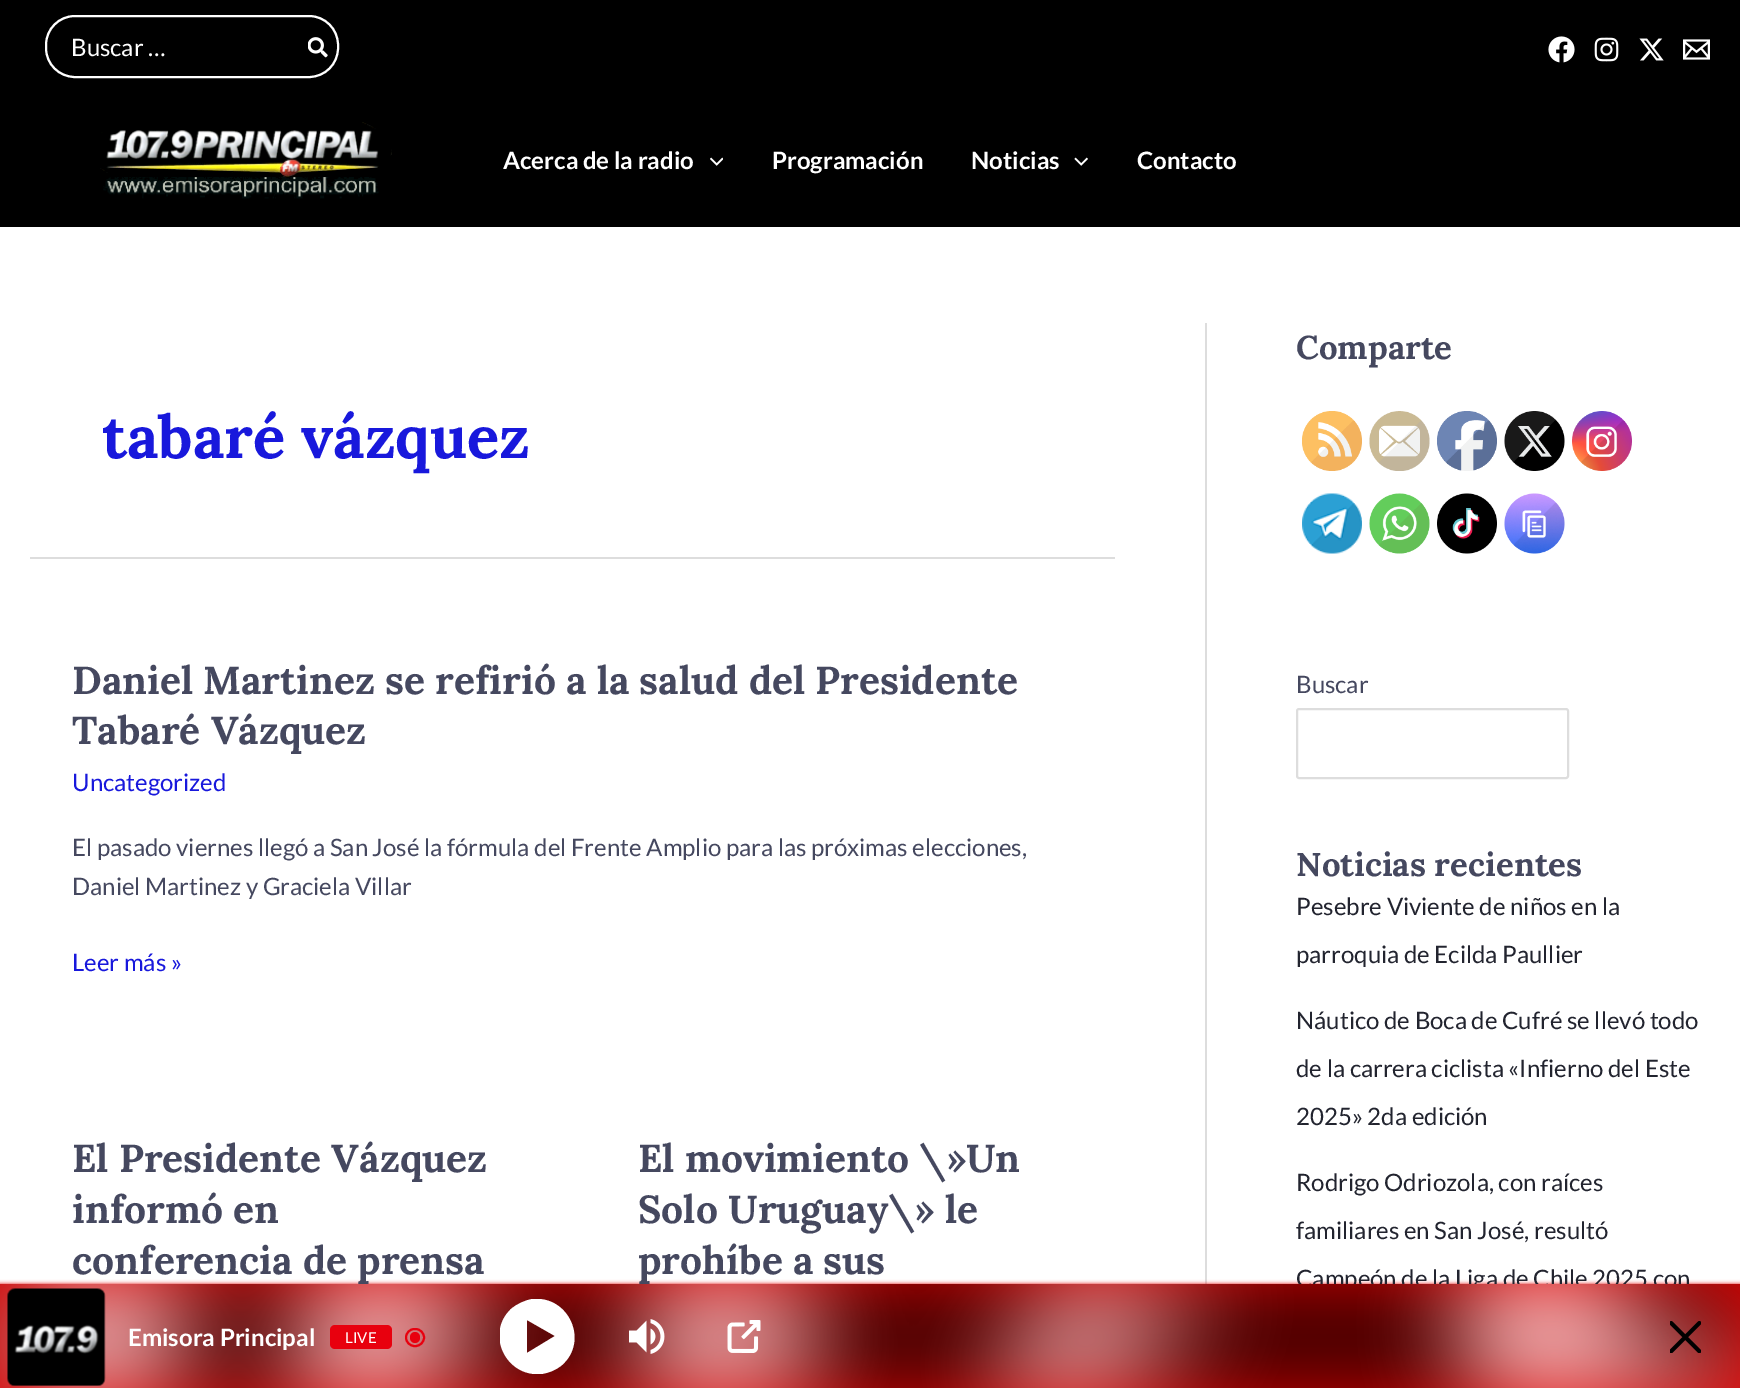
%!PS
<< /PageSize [1740 1388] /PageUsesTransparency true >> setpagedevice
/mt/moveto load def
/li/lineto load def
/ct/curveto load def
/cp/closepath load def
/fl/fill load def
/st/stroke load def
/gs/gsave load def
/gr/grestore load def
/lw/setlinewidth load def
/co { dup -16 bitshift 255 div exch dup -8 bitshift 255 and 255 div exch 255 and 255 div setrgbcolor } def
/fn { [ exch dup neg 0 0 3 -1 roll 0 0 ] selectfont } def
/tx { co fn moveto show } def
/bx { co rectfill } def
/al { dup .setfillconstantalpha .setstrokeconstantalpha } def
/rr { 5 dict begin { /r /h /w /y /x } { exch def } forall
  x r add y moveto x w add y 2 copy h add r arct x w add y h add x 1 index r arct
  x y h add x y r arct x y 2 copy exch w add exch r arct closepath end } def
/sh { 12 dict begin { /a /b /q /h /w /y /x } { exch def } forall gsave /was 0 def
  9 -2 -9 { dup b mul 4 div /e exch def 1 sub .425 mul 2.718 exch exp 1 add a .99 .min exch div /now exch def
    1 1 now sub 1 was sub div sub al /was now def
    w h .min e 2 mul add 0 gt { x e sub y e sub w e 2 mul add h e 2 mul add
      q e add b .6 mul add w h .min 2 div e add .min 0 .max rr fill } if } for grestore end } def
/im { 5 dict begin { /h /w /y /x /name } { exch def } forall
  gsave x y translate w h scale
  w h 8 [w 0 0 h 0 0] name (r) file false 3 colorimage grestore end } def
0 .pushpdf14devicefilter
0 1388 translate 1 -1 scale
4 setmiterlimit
0 0 1740 1388 16#FFFFFF bx
0 0 1740 227 16#000000 bx
16#FFFFFF co
2 lw
46 16 292 61 29 rr st
(media/1.raw) 308 37 20 21 im
(media/2.raw) 1548 36 27 27 im
(media/3.raw) 1594 37 25 25 im
(media/4.raw) 1639 38 25 23 im
(media/5.raw) 1683 39 27 21 im
(media/6.raw) 100 122 292 77 im
(media/7.raw) 710 157 13 9 im
(media/8.raw) 1074 157 14 9 im
1205 323 2 961 16#DDDDDD bx
30 557 1085 2 16#DDDDDD bx
(media/9.raw) 1302 411 60 60 im
(media/10.raw) 1369 411 61 60 im
(media/11.raw) 1437 411 60 60 im
(media/12.raw) 1504 411 61 60 im
(media/13.raw) 1572 411 60 60 im
(media/14.raw) 1302 493 60 61 im
(media/15.raw) 1369 493 61 61 im
(media/16.raw) 1437 493 60 61 im
(media/17.raw) 1504 493 61 61 im
1297 709 271 69 2 rr st
16#E00000 co
0 1284 1740 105 0 2 1 sh
(Buscar …) 71 56 /Lato-Regular 24 16#FFFFFF tx
(Acerca de la radio) 503 169 /Lato-Bold 24 16#FFFFFF tx
(Programación) 772 169 /Lato-Bold 24 16#FFFFFF tx
(Noticias) 971 169 /Lato-Bold 24 16#FFFFFF tx
(Contacto) 1137 169 /Lato-Bold 24 16#FFFFFF tx
(tabaré vázquez) 102 458 /Lora-Bold 60 16#1818DC tx
(Daniel Martinez se refirió a la salud del Presidente) 72 694 /Lora-Bold 39 16#45485F tx
(Tabaré Vázquez) 72 744 /Lora-Bold 39 16#45485F tx
(Uncategorized) 72 791 /Lato-Regular 24 16#1818DC tx
(El pasado viernes llegó a San José la fórmula del Frente Amplio para las próximas elecciones,) 72 856 /Lato-Regular 24 16#45485F tx
(Daniel Martinez y Graciela Villar) 72 895 /Lato-Regular 24 16#45485F tx
(Leer más ») 72 971 /Lato-Regular 24 16#1818DC tx
(El Presidente Vázquez) 72 1172 /Lora-Bold 39 16#45485F tx
(informó en) 72 1223 /Lora-Bold 39 16#45485F tx
(conferencia de prensa) 72 1274 /Lora-Bold 39 16#45485F tx
(El movimiento \\»Un) 638 1172 /Lora-Bold 39 16#45485F tx
(Solo Uruguay\\» le) 638 1223 /Lora-Bold 39 16#45485F tx
(prohíbe a sus) 638 1274 /Lora-Bold 39 16#45485F tx
(Comparte) 1296 359 /Lora-Bold 33 16#45485F tx
(Buscar) 1296 693 /Lato-Regular 24 16#45485F tx
(Noticias recientes) 1296 876 /Lora-Bold 33 16#45485F tx
(Pesebre Viviente de niños en la) 1296 915 /Lato-Regular 24 16#22242F tx
(parroquia de Ecilda Paullier) 1296 963 /Lato-Regular 24 16#22242F tx
(Náutico de Boca de Cufré se llevó todo) 1296 1029 /Lato-Regular 24 16#22242F tx
(de la carrera ciclista «Infierno del Este) 1296 1077 /Lato-Regular 24 16#22242F tx
(2025» 2da edición) 1296 1125 /Lato-Regular 24 16#22242F tx
(Rodrigo Odriozola, con raíces) 1296 1191 /Lato-Regular 24 16#22242F tx
(familiares en San José, resultó) 1296 1239 /Lato-Regular 24 16#22242F tx
(Campeón de la Liga de Chile 2025 con) 1296 1287 /Lato-Regular 24 16#22242F tx
0 1284 1740 104 16#E00000 bx
(media/18.raw) 0 1284 1740 104 im
(media/19.raw) 7 1288 99 98 im
(Emisora Principal) 128 1346 /Lato-Bold 24 16#FFFFFF tx
16#E8000E co
330 1325 62 24 5 rr fl
(LIVE) 345 1343 /Lato-Regular 15 16#FFFFFF tx
16#E8000E co
410 1332 10 11 5 rr fl
406 1329 18 17 8.5 rr st
gs
500 1299 75 75 rectclip
16#FFFFFF co
533 1299 mt 525 1300 517 1304 511 1309 ct 485 1334 506 1377 541 1374 ct 549 1373 556 1370 562 1365 ct 589 1341 569 1296 533 1299 ct cp 541 1328 mt 555 1336 li 527 1353 li 527 1320 li cp fl
gr
(media/20.raw) 629 1319 36 35 im
(media/21.raw) 727 1320 34 33 im
(media/22.raw) 1670 1321 31 32 im
.poppdf14devicefilter showpage
